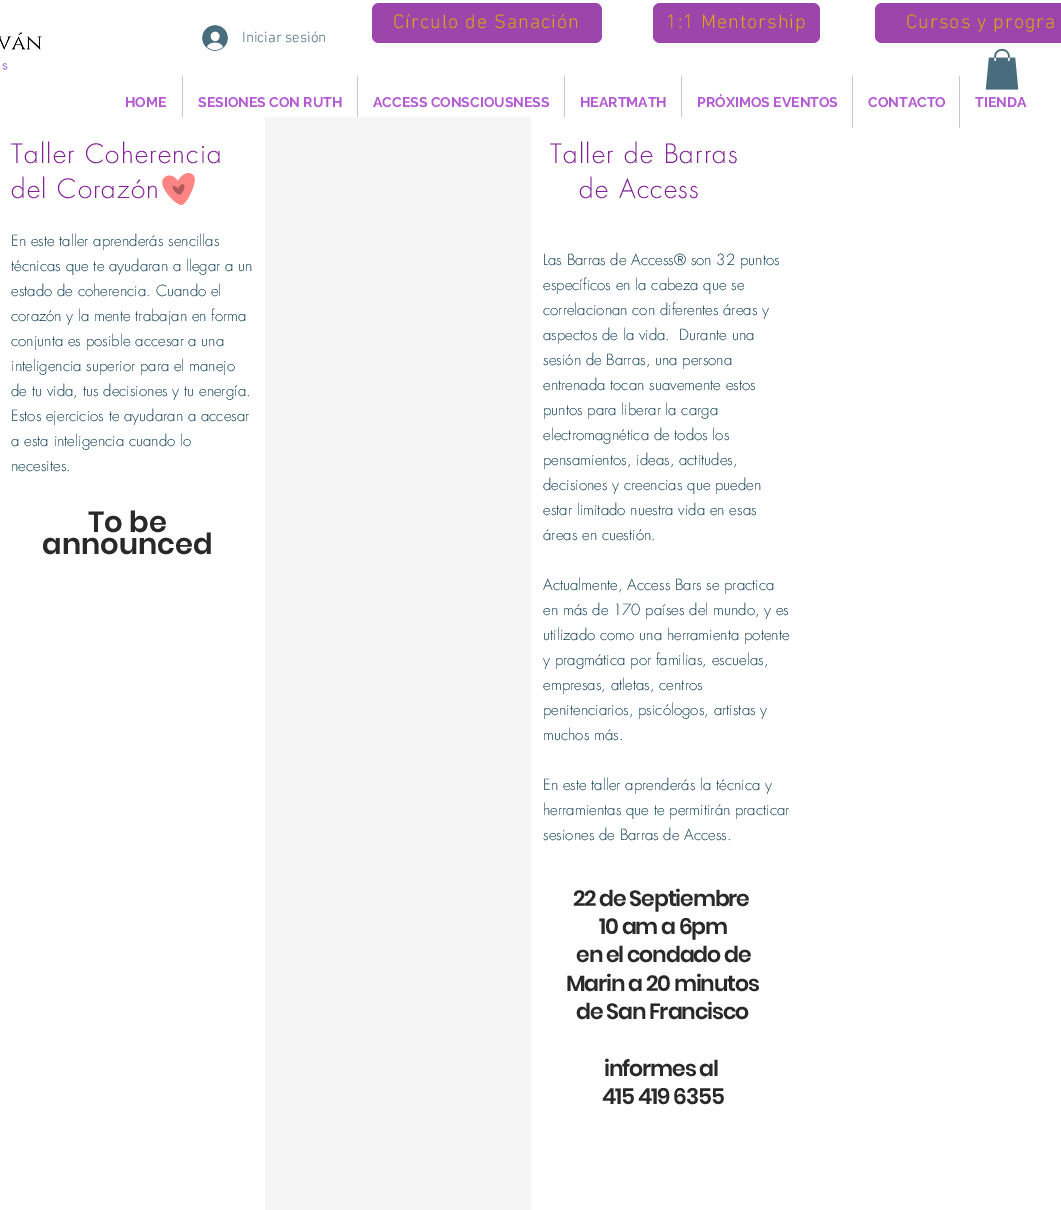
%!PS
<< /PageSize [1061 1210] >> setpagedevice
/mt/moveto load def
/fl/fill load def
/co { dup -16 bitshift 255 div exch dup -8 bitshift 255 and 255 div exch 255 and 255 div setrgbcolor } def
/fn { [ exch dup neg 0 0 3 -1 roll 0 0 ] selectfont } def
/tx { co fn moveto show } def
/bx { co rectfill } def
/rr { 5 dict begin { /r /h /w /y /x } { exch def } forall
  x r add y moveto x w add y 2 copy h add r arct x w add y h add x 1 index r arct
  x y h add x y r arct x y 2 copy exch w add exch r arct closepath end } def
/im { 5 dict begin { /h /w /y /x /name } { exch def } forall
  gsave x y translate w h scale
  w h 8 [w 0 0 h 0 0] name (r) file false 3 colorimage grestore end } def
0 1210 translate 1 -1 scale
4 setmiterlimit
0 0 1061 1210 16#FFFFFF bx
16#9C46AB co
372 3 230 40 7 rr fl
653 3 167 40 7 rr fl
875 3 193 40 7 rr fl
(media/1.raw) 0 32 42 38 im
(media/2.raw) 202 25 26 26 im
(media/3.raw) 985 49 34 41 im
182 76 1 41 16#D8BDE2 bx
357 76 1 41 16#D8BDE2 bx
564 76 1 41 16#D8BDE2 bx
681 76 1 41 16#D8BDE2 bx
852 76 1 52 16#D8BDE2 bx
959 76 1 52 16#D8BDE2 bx
(media/4.raw) 162 173 33 32 im
265 117 266 1093 16#F5F5F5 bx
/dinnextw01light-Light 20 fn
16#DEA50D co
393 28 mt 1 0 (Círculo de Sanación) ashow
666 28 mt 1 0 (1:1 Mentorship) ashow
906 28 mt 1 0 (Cursos y progra) ashow
(Iniciar sesión) 242 42 /dinnextw01light-Light 15 16#4A6D7E tx
(HOME) 125 107 /Raleway-Bold 14 16#B45AD3 tx
(SESIONES CON RUTH) 198 107 /Raleway-Bold 14 16#B45AD3 tx
(ACCESS CONSCIOUSNESS) 373 107 /Raleway-Bold 14 16#B45AD3 tx
(HEARTMATH) 580 107 /Raleway-Bold 14 16#B45AD3 tx
(PRÓXIMOS EVENTOS) 697 107 /Raleway-Bold 14 16#B45AD3 tx
(CONTACTO) 868 107 /Raleway-Bold 14 16#B45AD3 tx
(TIENDA) 975 107 /Raleway-Bold 14 16#B45AD3 tx
/futura-Light 26 fn
16#832097 co
11 163 mt 1.25 0 (Taller Coherencia) ashow
11 198 mt 1.25 0 (del Corazón) ashow
(En este taller aprenderás sencillas) 11 246 /futura-Light 15 16#0E3C53 tx
(técnicas que te ayudaran a llegar a un) 11 271 /futura-Light 15 16#0E3C53 tx
(estado de coherencia. Cuando el) 11 296 /futura-Light 15 16#0E3C53 tx
(corazón y la mente trabajan en forma) 11 321 /futura-Light 15 16#0E3C53 tx
(conjunta es posible accesar a una) 11 346 /futura-Light 15 16#0E3C53 tx
(inteligencia superior para el manejo) 11 371 /futura-Light 15 16#0E3C53 tx
(de tu vida, tus decisiones y tu energía.) 11 396 /futura-Light 15 16#0E3C53 tx
(Estos ejercicios te ayudaran a accesar) 11 421 /futura-Light 15 16#0E3C53 tx
(a esta inteligencia cuando lo) 11 446 /futura-Light 15 16#0E3C53 tx
(necesites.) 11 471 /futura-Light 15 16#0E3C53 tx
(To be) 88 532 /Poppins-SemiBold 29 16#292929 tx
(announced) 42 554 /Poppins-SemiBold 29 16#292929 tx
/futura-Light 26 fn
16#832097 co
550 163 mt 1.25 0 (Taller de Barras) ashow
579 198 mt 1.25 0 (de Access) ashow
(Las Barras de Access® son 32 puntos) 543 265 /futura-Light 15 16#0E3C53 tx
(específicos en la cabeza que se) 543 290 /futura-Light 15 16#0E3C53 tx
(correlacionan con diferentes áreas y) 543 315 /futura-Light 15 16#0E3C53 tx
(aspectos de la vida.  Durante una) 543 340 /futura-Light 15 16#0E3C53 tx
(sesión de Barras, una persona) 543 365 /futura-Light 15 16#0E3C53 tx
(entrenada tocan suavemente estos) 543 390 /futura-Light 15 16#0E3C53 tx
(puntos para liberar la carga) 543 415 /futura-Light 15 16#0E3C53 tx
(electromagnética de todos los) 543 440 /futura-Light 15 16#0E3C53 tx
(pensamientos, ideas, actitudes,) 543 465 /futura-Light 15 16#0E3C53 tx
(decisiones y creencias que pueden) 543 490 /futura-Light 15 16#0E3C53 tx
(estar limitado nuestra vida en esas) 543 515 /futura-Light 15 16#0E3C53 tx
(áreas en cuestión.) 543 540 /futura-Light 15 16#0E3C53 tx
(Actualmente, Access Bars se practica) 543 590 /futura-Light 15 16#0E3C53 tx
(en más de 170 países del mundo, y es) 543 615 /futura-Light 15 16#0E3C53 tx
(utilizado como una herramienta potente) 543 640 /futura-Light 15 16#0E3C53 tx
(y pragmática por familias, escuelas,) 543 665 /futura-Light 15 16#0E3C53 tx
(empresas, atletas, centros) 543 690 /futura-Light 15 16#0E3C53 tx
(penitenciarios, psicólogos, artistas y) 543 715 /futura-Light 15 16#0E3C53 tx
(muchos más.) 543 740 /futura-Light 15 16#0E3C53 tx
(En este taller aprenderás la técnica y) 543 790 /futura-Light 15 16#0E3C53 tx
(herramientas que te permitirán practicar) 543 815 /futura-Light 15 16#0E3C53 tx
(sesiones de Barras de Access.) 543 840 /futura-Light 15 16#0E3C53 tx
/Poppins-SemiBold 22 fn
16#292929 co
573 906 mt -1.1 0 (22 de Septiembre) ashow
599 934 mt -1.1 0 (10 am a 6pm) ashow
576 962 mt -1.1 0 (en el condado de) ashow
566 991 mt -1.1 0 (Marin a 20 minutos) ashow
576 1019 mt -1.1 0 (de San Francisco) ashow
604 1076 mt -1.1 0 (informes al) ashow
602 1104 mt -1.1 0 (415 419 6355) ashow
showpage
